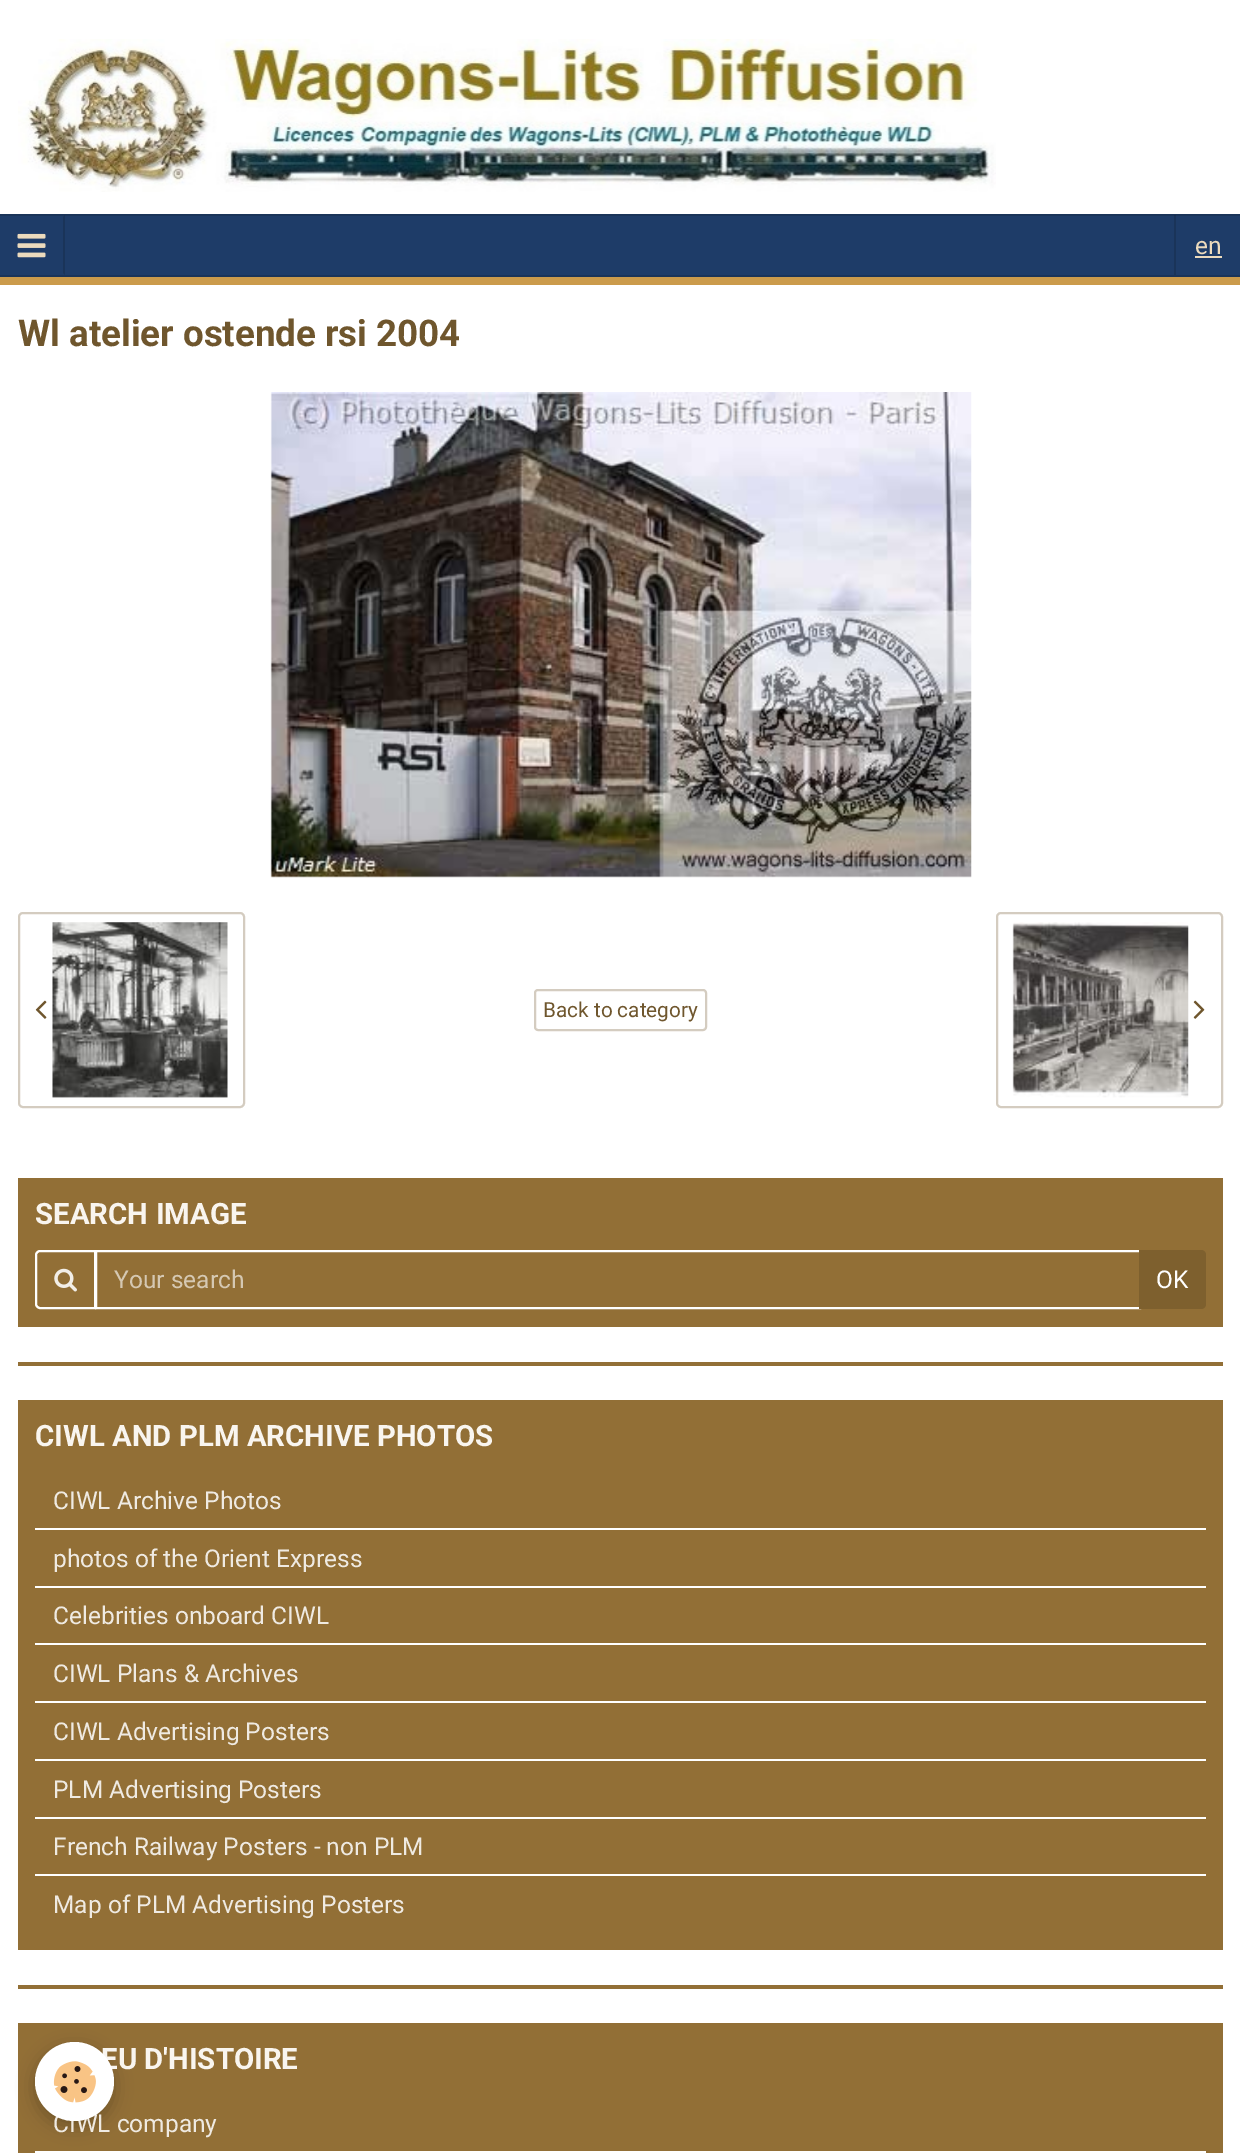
%!PS
<< /PageSize [1240 2153] /PageUsesTransparency true >> setpagedevice
/mt/moveto load def
/li/lineto load def
/ct/curveto load def
/cp/closepath load def
/fl/fill load def
/st/stroke load def
/lw/setlinewidth load def
/co { dup -16 bitshift 255 div exch dup -8 bitshift 255 and 255 div exch 255 and 255 div setrgbcolor } def
/fn { [ exch dup neg 0 0 3 -1 roll 0 0 ] selectfont } def
/tx { co fn moveto show } def
/bx { co rectfill } def
/al { dup .setfillconstantalpha .setstrokeconstantalpha } def
/ci { newpath 0 360 arc closepath } def
/rr { 5 dict begin { /r /h /w /y /x } { exch def } forall
  x r add y moveto x w add y 2 copy h add r arct x w add y h add x 1 index r arct
  x y h add x y r arct x y 2 copy exch w add exch r arct closepath end } def
/sh { 12 dict begin { /a /b /q /h /w /y /x } { exch def } forall gsave /was 0 def
  9 -2 -9 { dup b mul 4 div /e exch def 1 sub .425 mul 2.718 exch exp 1 add a .99 .min exch div /now exch def
    1 1 now sub 1 was sub div sub al /was now def
    w h .min e 2 mul add 0 gt { x e sub y e sub w e 2 mul add h e 2 mul add
      q e add b .6 mul add w h .min 2 div e add .min 0 .max rr fill } if } for grestore end } def
/im { 5 dict begin { /h /w /y /x /name } { exch def } forall
  gsave x y translate w h scale
  w h 8 [w 0 0 h 0 0] name (r) file false 3 colorimage grestore end } def
0 .pushpdf14devicefilter
0 2153 translate 1 -1 scale
4 setmiterlimit
0 0 1240 2153 16#FFFFFF bx
16#CB9B4B co
0 276 mt 0 285 li 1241 285 li 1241 30 li 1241 276 li cp fl
(media/1.raw) 18 39 978 153 im
0 216 1240 59 16#1E3C68 bx
1174 215 2 60 16#1A3459 bx
0 214 1240 2 16#1A3459 bx
1174 215 2 1 16#162D4D bx
0 275 1240 2 16#1A3459 bx
0.14 al
16#000000 co
65 215 mt 65 275 li 63 273 li 63 217 li cp fl
1 al
(media/2.raw) 17 233 29 25 im
1195 256 27 2 16#ECDBBD bx
(media/3.raw) 270 392 702 486 im
(media/4.raw) 35 1000 12 19 im
(media/5.raw) 52 922 176 176 im
16#D4CCC0 co
2 lw
19 913 225 194 4 rr st
535 990 171 40 3 rr st
(media/6.raw) 1012 922 177 176 im
(media/7.raw) 1193 1000 12 19 im
997 913 225 194 4 rr st
18 1178 1205 149 16#926F36 bx
16#FFFFFF co
40 1251 mt 95 1251 li 95 1308 li 40 1308 li 38 1308 36 1306 36 1304 ct 36 1255 li 36 1253 38 1251 40 1251 ct cp st
(media/8.raw) 54 1268 23 24 im
96 1251 1044 57 rectstroke
16#7E602E co
1139 1250 mt 1201 1250 li 1204 1250 1206 1252 1206 1255 ct 1206 1304 li 1206 1307 1204 1309 1201 1309 ct 1139 1309 li cp fl
18 1362 1205 4 16#926F36 bx
18 1400 1205 550 16#926F36 bx
35 1528 1171 2 16#FFFFFF bx
35 1586 1171 2 16#FFFFFF bx
35 1643 1171 2 16#FFFFFF bx
35 1701 1171 2 16#FFFFFF bx
35 1759 1171 2 16#FFFFFF bx
35 1817 1171 2 16#FFFFFF bx
35 1874 1171 2 16#FFFFFF bx
18 1985 1205 4 16#926F36 bx
18 2023 1205 130 16#926F36 bx
35 2151 1171 2 16#FFFFFF bx
16#000000 co
35 2048 79 78 39 9 .24 sh
(en) 1195 254 /Roboto-Regular 24.5 16#ECDBBD tx
(Wl atelier ostende rsi 2004) 18 346 /Roboto-Bold 36.75 16#6F562D tx
(Back to category) 543 1017 /Roboto-Regular 20.75 16#6F562D tx
(SEARCH IMAGE) 35 1224 /Roboto-Bold 29.4 16#F9F5EF tx
(Your search) 114 1288 /Roboto-Regular 24.5 16#D5C8B2 tx
(OK) 1156 1288 /Roboto-Regular 24.5 16#FFFFFF tx
(CIWL AND PLM ARCHIVE PHOTOS) 35 1446 /Roboto-Bold 29.4 16#F9F5EF tx
(CIWL Archive Photos) 53 1509 /Roboto-Regular 24.5 16#EFEAE2 tx
(photos of the Orient Express) 53 1567 /Roboto-Regular 24.5 16#EFEAE2 tx
(Celebrities onboard CIWL) 53 1624 /Roboto-Regular 24.5 16#EFEAE2 tx
(CIWL Plans & Archives) 53 1682 /Roboto-Regular 24.5 16#EFEAE2 tx
(CIWL Advertising Posters) 53 1740 /Roboto-Regular 24.5 16#EFEAE2 tx
(PLM Advertising Posters) 53 1798 /Roboto-Regular 24.5 16#EFEAE2 tx
(French Railway Posters - non PLM) 53 1855 /Roboto-Regular 24.5 16#EFEAE2 tx
(Map of PLM Advertising Posters) 53 1913 /Roboto-Regular 24.5 16#EFEAE2 tx
(EU D'HISTOIRE) 101 2069 /Roboto-Bold 29.4 16#F9F5EF tx
(CIWL company) 53 2132 /Roboto-Regular 24.5 16#EFEAE2 tx
16#FFFFFF co
74.5 2081.5 39.5 ci fl
(media/9.raw) 53 2061 43 42 im
.poppdf14devicefilter showpage
